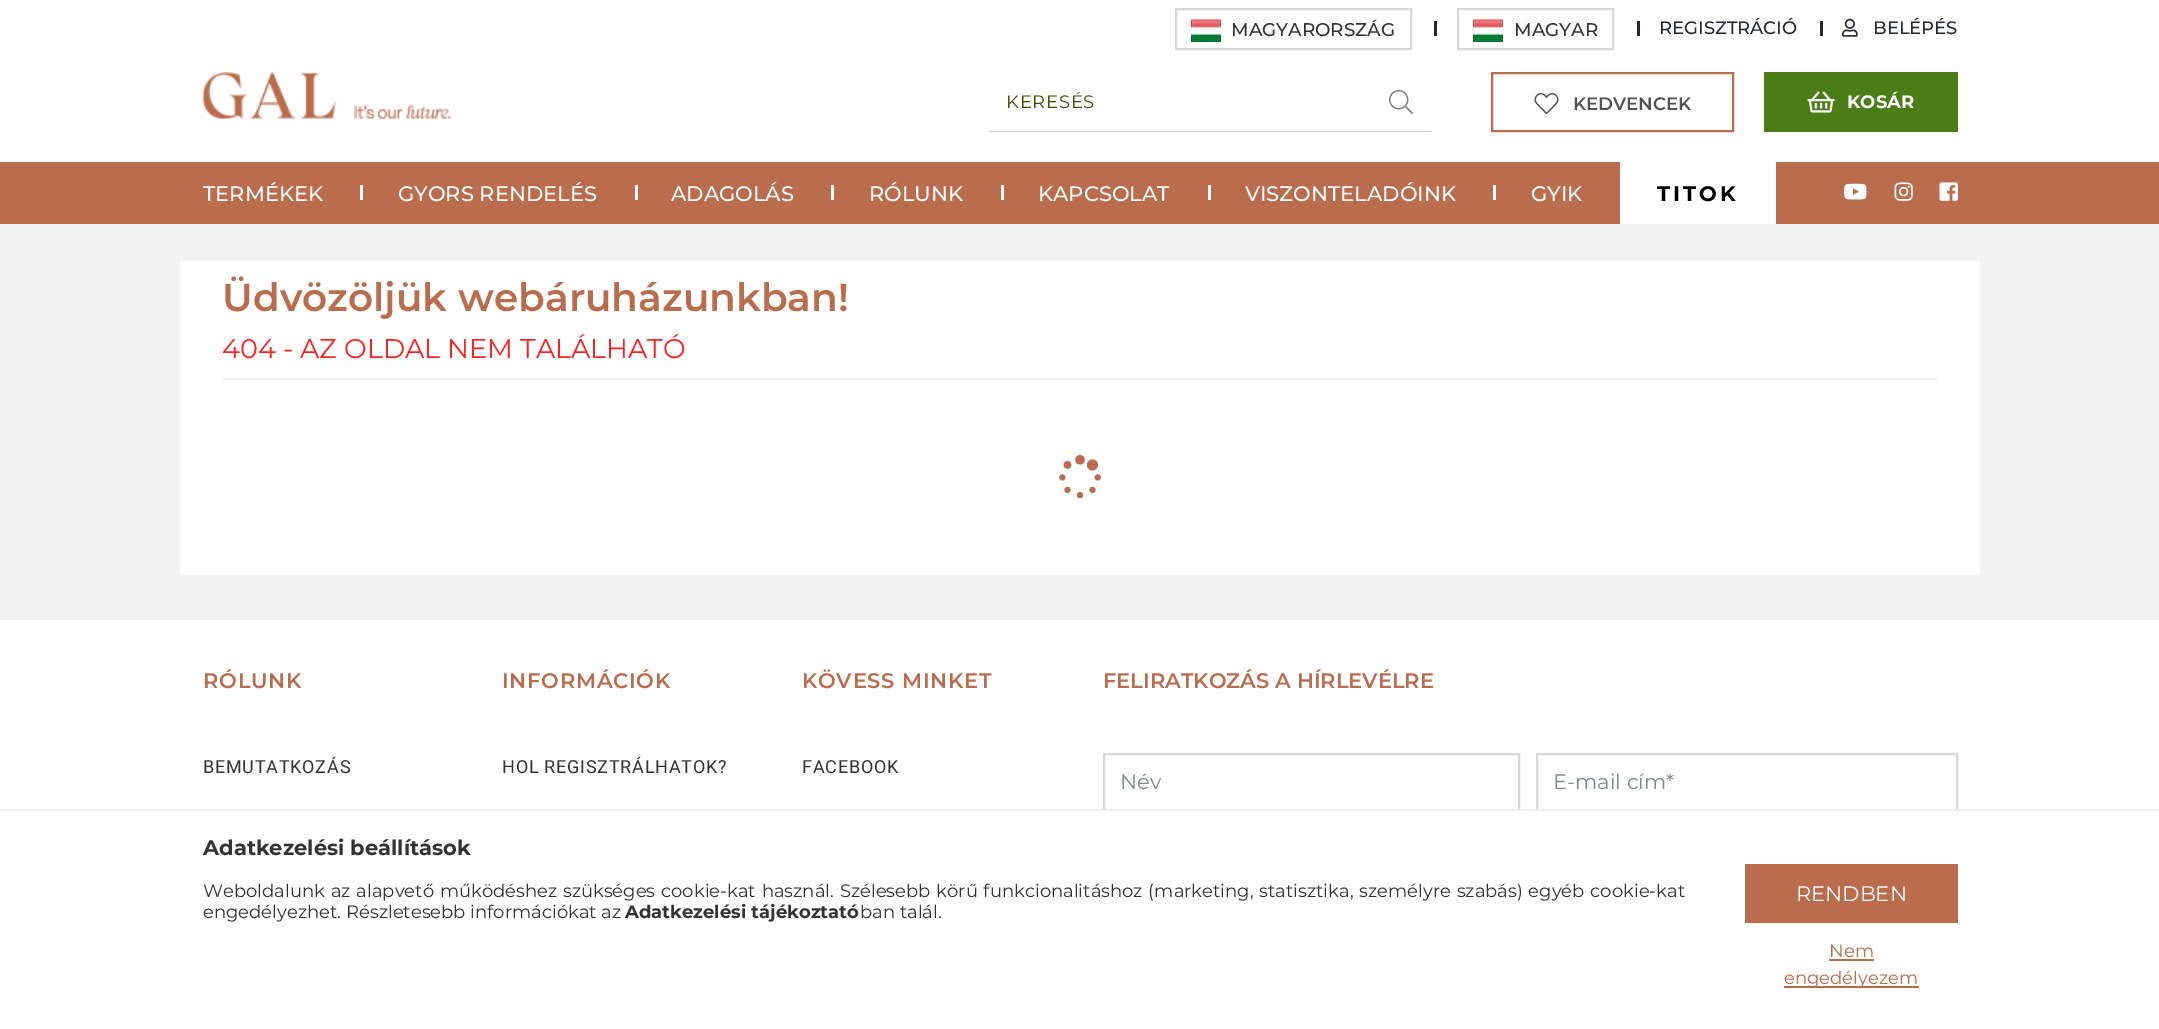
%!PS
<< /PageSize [2159 1029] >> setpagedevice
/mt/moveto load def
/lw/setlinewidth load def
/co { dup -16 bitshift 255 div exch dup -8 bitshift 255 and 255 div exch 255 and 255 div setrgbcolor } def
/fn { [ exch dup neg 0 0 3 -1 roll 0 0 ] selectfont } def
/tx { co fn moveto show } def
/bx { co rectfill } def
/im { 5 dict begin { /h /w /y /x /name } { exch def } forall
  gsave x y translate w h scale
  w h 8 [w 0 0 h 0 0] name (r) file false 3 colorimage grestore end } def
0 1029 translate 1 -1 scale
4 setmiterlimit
0 0 2159 1029 16#F2F2F2 bx
0 0 2159 162 16#FFFFFF bx
16#D9D9D9 co
2 lw
1176 9 235 40 rectstroke
(media/1.raw) 1191 19 30 23 im
1434 21 3 15 16#242834 bx
16#D9D9D9 co
1458 9 155 40 rectstroke
(media/1.raw) 1473 19 30 23 im
1637 21 3 15 16#242834 bx
1820 21 3 15 16#242834 bx
(media/2.raw) 1842 18 16 19 im
(media/3.raw) 202 72 250 48 im
989 131 442 1 16#CFCFCF bx
(media/4.raw) 1389 90 24 24 im
16#BA6C4D co
1492 73 241 58 rectstroke
(media/5.raw) 1534 93 25 21 im
1764 72 194 60 16#4B7D17 bx
(media/6.raw) 1807 91 28 22 im
0 162 2159 62 16#BA6C4D bx
360 185 3 15 16#FFFFFF bx
635 185 3 15 16#FFFFFF bx
831 185 3 15 16#FFFFFF bx
1001 185 3 15 16#FFFFFF bx
1208 185 3 15 16#FFFFFF bx
1493 185 3 15 16#FFFFFF bx
1620 162 156 62 16#FFFFFF bx
(media/7.raw) 1844 183 23 17 im
(media/8.raw) 1894 182 19 19 im
(media/9.raw) 1939 182 19 19 im
180 261 1800 314 16#FFFFFF bx
222 378 1716 2 16#F2F2F2 bx
(media/10.raw) 1059 454 42 45 im
0 620 2159 189 16#FFFFFF bx
16#D9D9D9 co
1104 754 415 58 rectstroke
1537 754 420 58 rectstroke
0 811 2159 218 16#FFFFFF bx
0 809 2159 2 16#ECEEEF bx
1745 864 213 59 16#BA6C4D bx
1829 959 45 2 16#BA6C4D bx
1784 986 135 2 16#BA6C4D bx
(MAGYARORSZÁG) 1231 36 /Montserrat-Thin 18.4 16#333333 tx
(MAGYAR) 1514 36 /Montserrat-Thin 18.4 16#333333 tx
(REGISZTRÁCIÓ) 1659 34 /Montserrat-Thin 18 16#242834 tx
(BELÉPÉS) 1873 34 /Montserrat-Thin 18 16#242834 tx
/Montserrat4-Thin 18 fn
16#474D09 co
1006 108 mt .75 0 (KERESÉS) ashow
(KEDVENCEK) 1573 110 /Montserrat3-Thin 18 16#525357 tx
(KOSÁR) 1847 108 /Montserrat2-Thin 18 16#FFFFFF tx
(TERMÉKEK) 203 201 /Montserrat-Thin 21 16#FFFFFF tx
(GYORS RENDELÉS) 398 201 /Montserrat-Thin 21 16#FFFFFF tx
(ADAGOLÁS) 671 201 /Montserrat-Thin 21 16#FFFFFF tx
(RÓLUNK) 869 201 /Montserrat-Thin 21 16#FFFFFF tx
(KAPCSOLAT) 1038 201 /Montserrat-Thin 21 16#FFFFFF tx
(VISZONTELADÓINK) 1245 201 /Montserrat-Thin 21 16#FFFFFF tx
(GYIK) 1531 201 /Montserrat-Thin 21 16#FFFFFF tx
/Montserrat2-Thin 21 fn
16#000000 co
1657 201 mt 3 0 (TITOK) ashow
(Üdvözöljük webáruházunkban!) 222 311 /Montserrat3-Thin 39 16#BA6C4D tx
(404 - AZ OLDAL NEM TALÁLHATÓ) 222 358 /Montserrat4-Thin 27 16#FF2222 tx
/Montserrat3-Thin 21 fn
16#BA6C4D co
203 688 mt .75 0 (RÓLUNK) ashow
/Roboto-Regular 18 fn
16#333333 co
203 773 mt .75 0 (BEMUTATKOZÁS) ashow
/Montserrat3-Thin 21 fn
16#BA6C4D co
502 688 mt .75 0 (INFORMÁCIÓK) ashow
/Roboto-Regular 18 fn
16#333333 co
502 773 mt .75 0 (HOL REGISZTRÁLHATOK?) ashow
/Montserrat3-Thin 21 fn
16#BA6C4D co
802 688 mt .75 0 (KÖVESS MINKET) ashow
/Roboto-Regular 18 fn
16#333333 co
802 773 mt .75 0 (FACEBOOK) ashow
(FELIRATKOZÁS A HÍRLEVÉLRE) 1103 688 /Montserrat3-Thin 21 16#BA6C4D tx
(Név) 1120 789 /Montserrat4-Thin 21 16#818A91 tx
(E-mail cím*) 1553 789 /Montserrat4-Thin 21 16#818A91 tx
(Adatkezelési beállítások) 203 855 /Montserrat2-Thin 21 16#333333 tx
/Montserrat4-Thin 18 fn
203 897 mt 1.1 0 32 (Weboldalunk az alapvető működéshez szükséges cookie-kat használ. Szélesebb körű funkcionalitáshoz \(marketing, statisztika, személyre szabás\) egyéb cookie-kat) widthshow
(engedélyezhet. Részletesebb információkat az) 203 918 /Montserrat4-Thin 18 16#333333 tx
(Adatkezelési tájékoztató) 625 918 /Montserrat2-Thin 18 16#333333 tx
(ban talál.) 860 918 /Montserrat4-Thin 18 16#333333 tx
(RENDBEN) 1796 901 /Montserrat4-Thin 21 16#FFFFFF tx
(Nem) 1829 957 /Montserrat4-Thin 18 16#BA6C4D tx
(engedélyezem) 1784 984 /Montserrat4-Thin 18 16#BA6C4D tx
showpage
